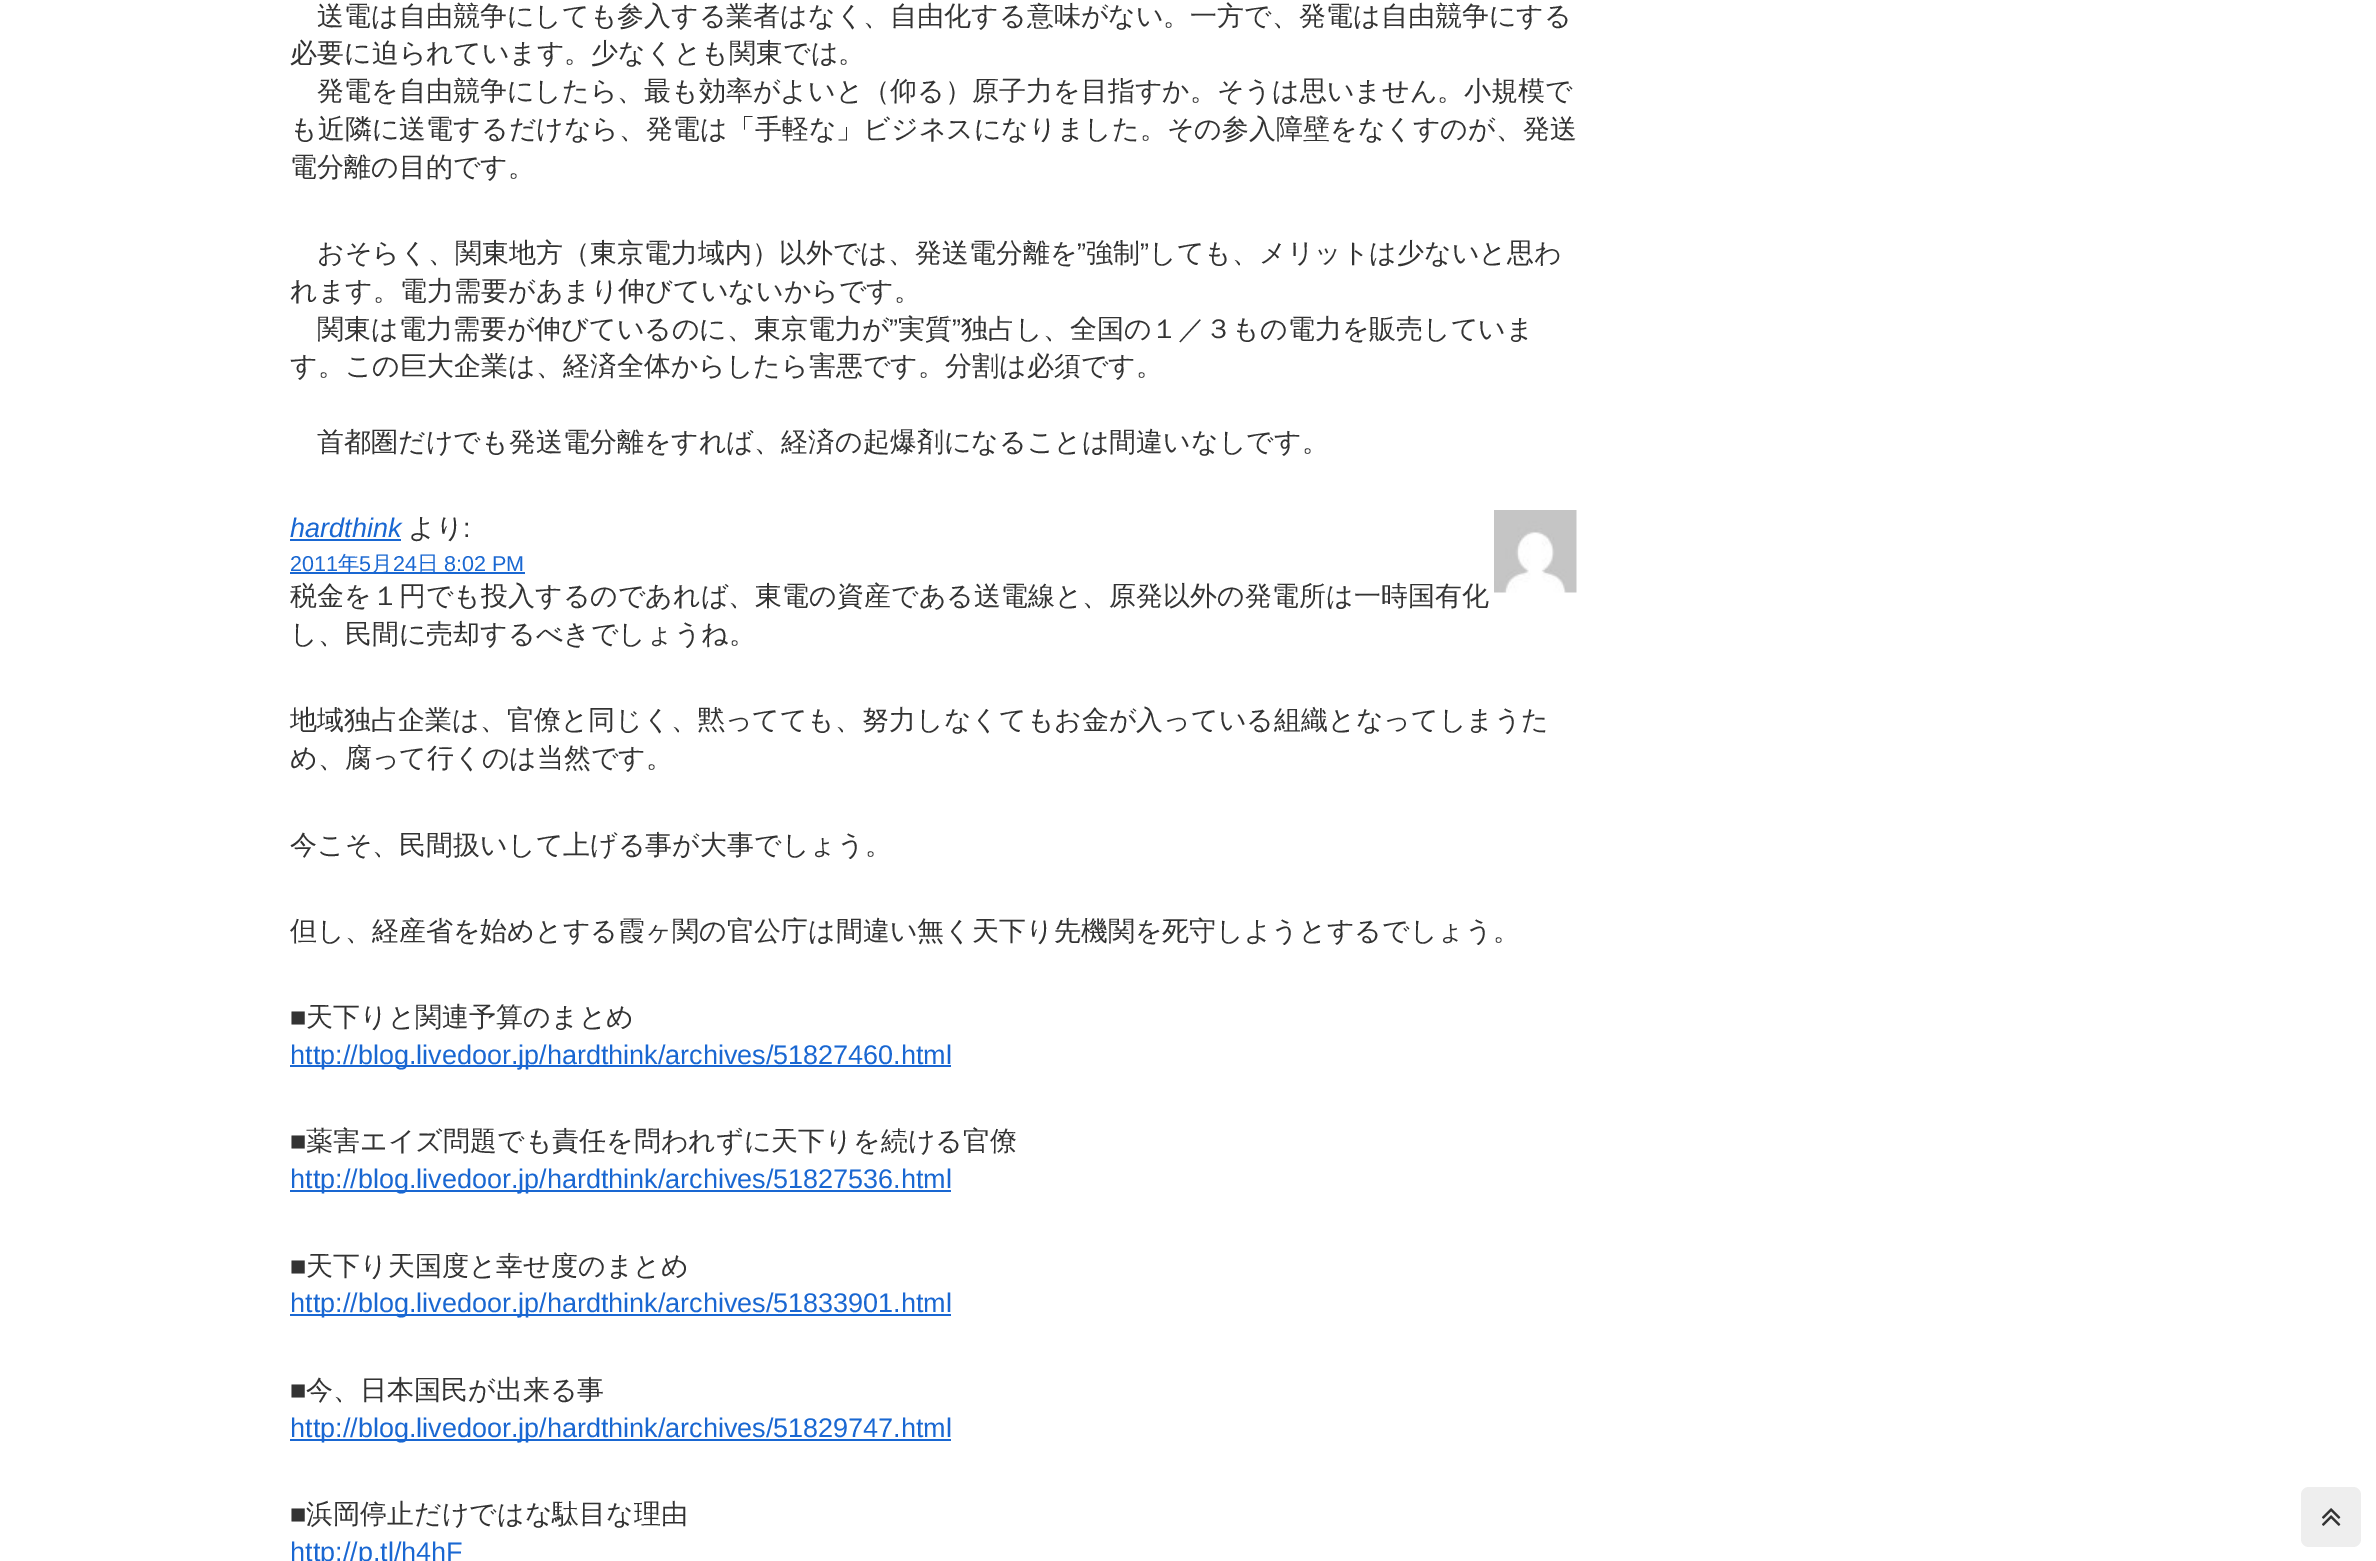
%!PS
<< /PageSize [2376 1561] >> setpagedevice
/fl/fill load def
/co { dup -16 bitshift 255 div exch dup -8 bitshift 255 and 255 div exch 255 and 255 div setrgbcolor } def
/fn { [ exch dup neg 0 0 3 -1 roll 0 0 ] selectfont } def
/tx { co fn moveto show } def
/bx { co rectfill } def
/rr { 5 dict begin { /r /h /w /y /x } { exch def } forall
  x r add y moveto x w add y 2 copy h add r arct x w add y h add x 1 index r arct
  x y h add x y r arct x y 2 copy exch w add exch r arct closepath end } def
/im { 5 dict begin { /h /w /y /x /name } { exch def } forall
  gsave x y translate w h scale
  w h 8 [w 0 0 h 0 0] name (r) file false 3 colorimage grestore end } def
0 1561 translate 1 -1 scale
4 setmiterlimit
0 0 2376 1561 16#FFFFFF bx
290 539 111 2 16#1967D2 bx
(media/1.raw) 1494 510 83 83 im
290 572 235 2 16#1967D2 bx
290 1065 661 2 16#1967D2 bx
290 1190 661 2 16#1967D2 bx
290 1314 661 2 16#1967D2 bx
290 1439 661 2 16#1967D2 bx
16#EEEEEE co
2301 1487 60 60 8 rr fl
(media/2.raw) 2322 1508 19 18 im
(送電は自由競争にしても参入する業者はなく、自由化する意味がない。一方で、発電は自由競争にする) 317 25 /WenQuanYiZenHei-Medium 27 16#333333 tx
(必要に迫られています。少なくとも関東では。) 290 62 /WenQuanYiZenHei-Medium 27 16#333333 tx
(発電を自由競争にしたら、最も効率がよいと（仰る）原子力を目指すか。そうは思いません。小規模で) 317 100 /WenQuanYiZenHei-Medium 27 16#333333 tx
(も近隣に送電するだけなら、発電は「手軽な」ビジネスになりました。その参入障壁をなくすのが、発送) 290 138 /WenQuanYiZenHei-Medium 27 16#333333 tx
(電分離の目的です。) 290 176 /WenQuanYiZenHei-Medium 27 16#333333 tx
(おそらく、関東地方（東京電力域内）以外では、発送電分離を) 317 262 /WenQuanYiZenHei-Medium 27 16#333333 tx
(”) 1077 262 /LiberationSans-Regular 27 16#333333 tx
(強制) 1086 262 /WenQuanYiZenHei-Medium 27 16#333333 tx
(”) 1140 262 /LiberationSans-Regular 27 16#333333 tx
(しても、メリットは少ないと思わ) 1149 262 /WenQuanYiZenHei-Medium 27 16#333333 tx
(れます。電力需要があまり伸びていないからです。) 290 300 /WenQuanYiZenHei-Medium 27 16#333333 tx
(関東は電力需要が伸びているのに、東京電力が) 317 338 /WenQuanYiZenHei-Medium 27 16#333333 tx
(”) 889 338 /LiberationSans-Regular 27 16#333333 tx
(実質) 898 338 /WenQuanYiZenHei-Medium 27 16#333333 tx
(”) 952 338 /LiberationSans-Regular 27 16#333333 tx
(独占し、全国の１／３もの電力を販売していま) 961 338 /WenQuanYiZenHei-Medium 27 16#333333 tx
(す。この巨大企業は、経済全体からしたら害悪です。分割は必須です。) 290 375 /WenQuanYiZenHei-Medium 27 16#333333 tx
(首都圏だけでも発送電分離をすれば、経済の起爆剤になることは間違いなしです。) 317 451 /WenQuanYiZenHei-Medium 27 16#333333 tx
(hardthink) 290 537 /LiberationSans-Italic 27 16#1967D2 tx
(より) 408 537 /WenQuanYiZenHei-Medium 27 16#333333 tx
(:) 463 537 /LiberationSans-Regular 27 16#333333 tx
(2011) 290 571 /LiberationSans-Regular 21.5 16#1967D2 tx
(年) 338 571 /WenQuanYiZenHei-Medium 21.5 16#1967D2 tx
(5) 359 571 /LiberationSans-Regular 21.5 16#1967D2 tx
(月) 371 571 /WenQuanYiZenHei-Medium 21.5 16#1967D2 tx
(24) 393 571 /LiberationSans-Regular 21.5 16#1967D2 tx
(日) 417 571 /WenQuanYiZenHei-Medium 21.5 16#1967D2 tx
(8:02 PM) 444 571 /LiberationSans-Regular 21.5 16#1967D2 tx
(税金を１円でも投入するのであれば、東電の資産である送電線と、原発以外の発電所は一時国有化) 290 605 /WenQuanYiZenHei-Medium 27 16#333333 tx
(し、民間に売却するべきでしょうね。) 290 643 /WenQuanYiZenHei-Medium 27 16#333333 tx
(地域独占企業は、官僚と同じく、黙ってても、努力しなくてもお金が入っている組織となってしまうた) 290 729 /WenQuanYiZenHei-Medium 27 16#333333 tx
(め、腐って行くのは当然です。) 290 767 /WenQuanYiZenHei-Medium 27 16#333333 tx
(今こそ、民間扱いして上げる事が大事でしょう。) 290 854 /WenQuanYiZenHei-Medium 27 16#333333 tx
(但し、経産省を始めとする霞ヶ関の官公庁は間違い無く天下り先機関を死守しようとするでしょう。) 290 940 /WenQuanYiZenHei-Medium 27 16#333333 tx
(■) 290 1026 /LiberationSans-Regular 27 16#333333 tx
(天下りと関連予算のまとめ) 306 1026 /WenQuanYiZenHei-Medium 27 16#333333 tx
(http://blog.livedoor.jp/hardthink/archives/51827460.html) 290 1064 /LiberationSans-Regular 27 16#1967D2 tx
(■) 290 1150 /LiberationSans-Regular 27 16#333333 tx
(薬害エイズ問題でも責任を問われずに天下りを続ける官僚) 306 1150 /WenQuanYiZenHei-Medium 27 16#333333 tx
(http://blog.livedoor.jp/hardthink/archives/51827536.html) 290 1188 /LiberationSans-Regular 27 16#1967D2 tx
(■) 290 1275 /LiberationSans-Regular 27 16#333333 tx
(天下り天国度と幸せ度のまとめ) 306 1275 /WenQuanYiZenHei-Medium 27 16#333333 tx
(http://blog.livedoor.jp/hardthink/archives/51833901.html) 290 1312 /LiberationSans-Regular 27 16#1967D2 tx
(■) 290 1399 /LiberationSans-Regular 27 16#333333 tx
(今、日本国民が出来る事) 306 1399 /WenQuanYiZenHei-Medium 27 16#333333 tx
(http://blog.livedoor.jp/hardthink/archives/51829747.html) 290 1437 /LiberationSans-Regular 27 16#1967D2 tx
(■) 290 1523 /LiberationSans-Regular 27 16#333333 tx
(浜岡停止だけではな駄目な理由) 306 1523 /WenQuanYiZenHei-Medium 27 16#333333 tx
(http://p.tl/h4hF) 290 1561 /LiberationSans-Regular 27 16#1967D2 tx
showpage
